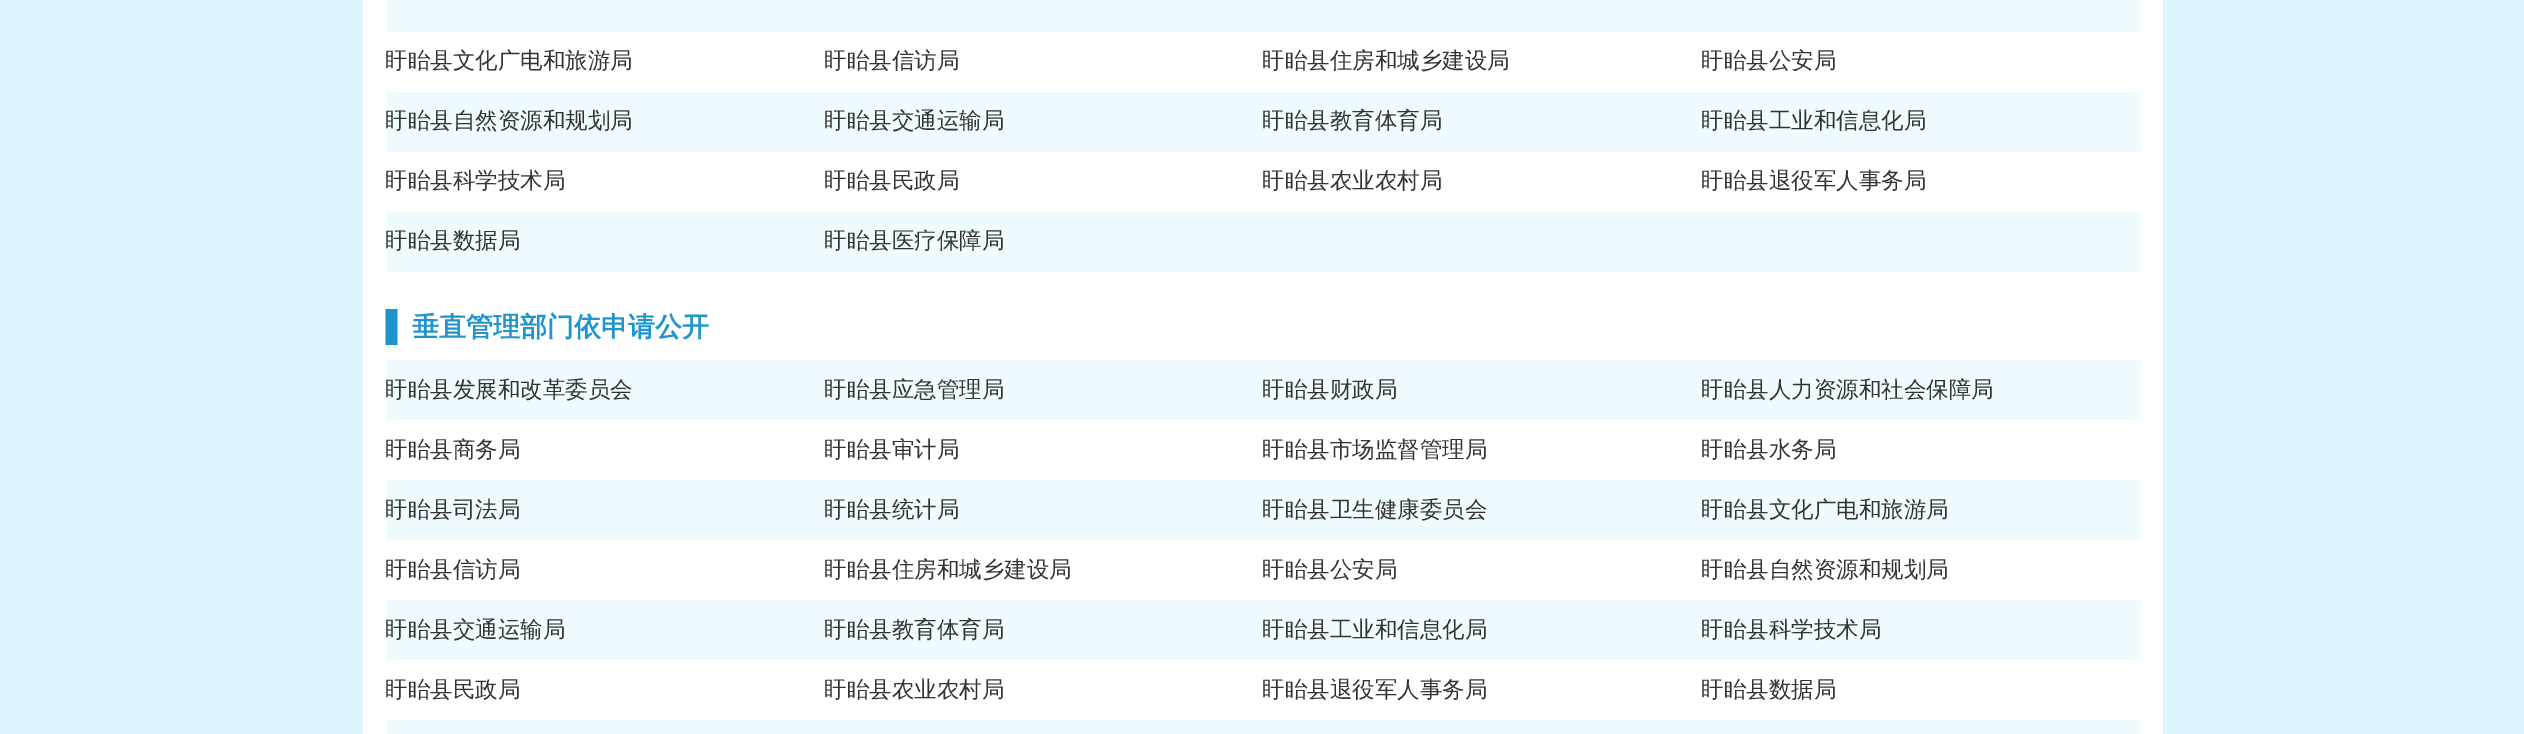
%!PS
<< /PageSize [2524 734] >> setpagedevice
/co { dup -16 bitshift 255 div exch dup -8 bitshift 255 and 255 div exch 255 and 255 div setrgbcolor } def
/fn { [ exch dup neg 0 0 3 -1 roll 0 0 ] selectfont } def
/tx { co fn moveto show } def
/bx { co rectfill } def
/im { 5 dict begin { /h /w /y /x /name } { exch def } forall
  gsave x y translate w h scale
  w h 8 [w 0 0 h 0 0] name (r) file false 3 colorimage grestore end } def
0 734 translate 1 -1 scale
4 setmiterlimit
0 0 2524 734 16#DEF5FF bx
363 0 1800 734 16#FFFFFF bx
386 0 1755 32 16#F0FBFF bx
386 92 1755 60 16#F0FBFF bx
386 212 1755 60 16#F0FBFF bx
(media/1.raw) 385 309 13 36 im
386 360 1755 60 16#F0FBFF bx
386 480 1755 60 16#F0FBFF bx
386 600 1755 60 16#F0FBFF bx
386 720 1755 14 16#F0FBFF bx
(盱眙县文化广电和旅游局) 385 68 /WenQuanYiZenHei-Medium 22.5 16#333333 tx
(盱眙县信访局) 824 68 /WenQuanYiZenHei-Medium 22.5 16#333333 tx
(盱眙县住房和城乡建设局) 1262 68 /WenQuanYiZenHei-Medium 22.5 16#333333 tx
(盱眙县公安局) 1701 68 /WenQuanYiZenHei-Medium 22.5 16#333333 tx
(盱眙县自然资源和规划局) 385 128 /WenQuanYiZenHei-Medium 22.5 16#333333 tx
(盱眙县交通运输局) 824 128 /WenQuanYiZenHei-Medium 22.5 16#333333 tx
(盱眙县教育体育局) 1262 128 /WenQuanYiZenHei-Medium 22.5 16#333333 tx
(盱眙县工业和信息化局) 1701 128 /WenQuanYiZenHei-Medium 22.5 16#333333 tx
(盱眙县科学技术局) 385 188 /WenQuanYiZenHei-Medium 22.5 16#333333 tx
(盱眙县民政局) 824 188 /WenQuanYiZenHei-Medium 22.5 16#333333 tx
(盱眙县农业农村局) 1262 188 /WenQuanYiZenHei-Medium 22.5 16#333333 tx
(盱眙县退役军人事务局) 1701 188 /WenQuanYiZenHei-Medium 22.5 16#333333 tx
(盱眙县数据局) 385 248 /WenQuanYiZenHei-Medium 22.5 16#333333 tx
(盱眙县医疗保障局) 824 248 /WenQuanYiZenHei-Medium 22.5 16#333333 tx
(垂直管理部门依申请公开) 412 336 /WenQuanYiZenHei-Bold 27 16#1E95CC tx
(盱眙县发展和改革委员会) 385 397 /WenQuanYiZenHei-Medium 22.5 16#333333 tx
(盱眙县应急管理局) 824 397 /WenQuanYiZenHei-Medium 22.5 16#333333 tx
(盱眙县财政局) 1262 397 /WenQuanYiZenHei-Medium 22.5 16#333333 tx
(盱眙县人力资源和社会保障局) 1701 397 /WenQuanYiZenHei-Medium 22.5 16#333333 tx
(盱眙县商务局) 385 457 /WenQuanYiZenHei-Medium 22.5 16#333333 tx
(盱眙县审计局) 824 457 /WenQuanYiZenHei-Medium 22.5 16#333333 tx
(盱眙县市场监督管理局) 1262 457 /WenQuanYiZenHei-Medium 22.5 16#333333 tx
(盱眙县水务局) 1701 457 /WenQuanYiZenHei-Medium 22.5 16#333333 tx
(盱眙县司法局) 385 517 /WenQuanYiZenHei-Medium 22.5 16#333333 tx
(盱眙县统计局) 824 517 /WenQuanYiZenHei-Medium 22.5 16#333333 tx
(盱眙县卫生健康委员会) 1262 517 /WenQuanYiZenHei-Medium 22.5 16#333333 tx
(盱眙县文化广电和旅游局) 1701 517 /WenQuanYiZenHei-Medium 22.5 16#333333 tx
(盱眙县信访局) 385 577 /WenQuanYiZenHei-Medium 22.5 16#333333 tx
(盱眙县住房和城乡建设局) 824 577 /WenQuanYiZenHei-Medium 22.5 16#333333 tx
(盱眙县公安局) 1262 577 /WenQuanYiZenHei-Medium 22.5 16#333333 tx
(盱眙县自然资源和规划局) 1701 577 /WenQuanYiZenHei-Medium 22.5 16#333333 tx
(盱眙县交通运输局) 385 637 /WenQuanYiZenHei-Medium 22.5 16#333333 tx
(盱眙县教育体育局) 824 637 /WenQuanYiZenHei-Medium 22.5 16#333333 tx
(盱眙县工业和信息化局) 1262 637 /WenQuanYiZenHei-Medium 22.5 16#333333 tx
(盱眙县科学技术局) 1701 637 /WenQuanYiZenHei-Medium 22.5 16#333333 tx
(盱眙县民政局) 385 697 /WenQuanYiZenHei-Medium 22.5 16#333333 tx
(盱眙县农业农村局) 824 697 /WenQuanYiZenHei-Medium 22.5 16#333333 tx
(盱眙县退役军人事务局) 1262 697 /WenQuanYiZenHei-Medium 22.5 16#333333 tx
(盱眙县数据局) 1701 697 /WenQuanYiZenHei-Medium 22.5 16#333333 tx
showpage
